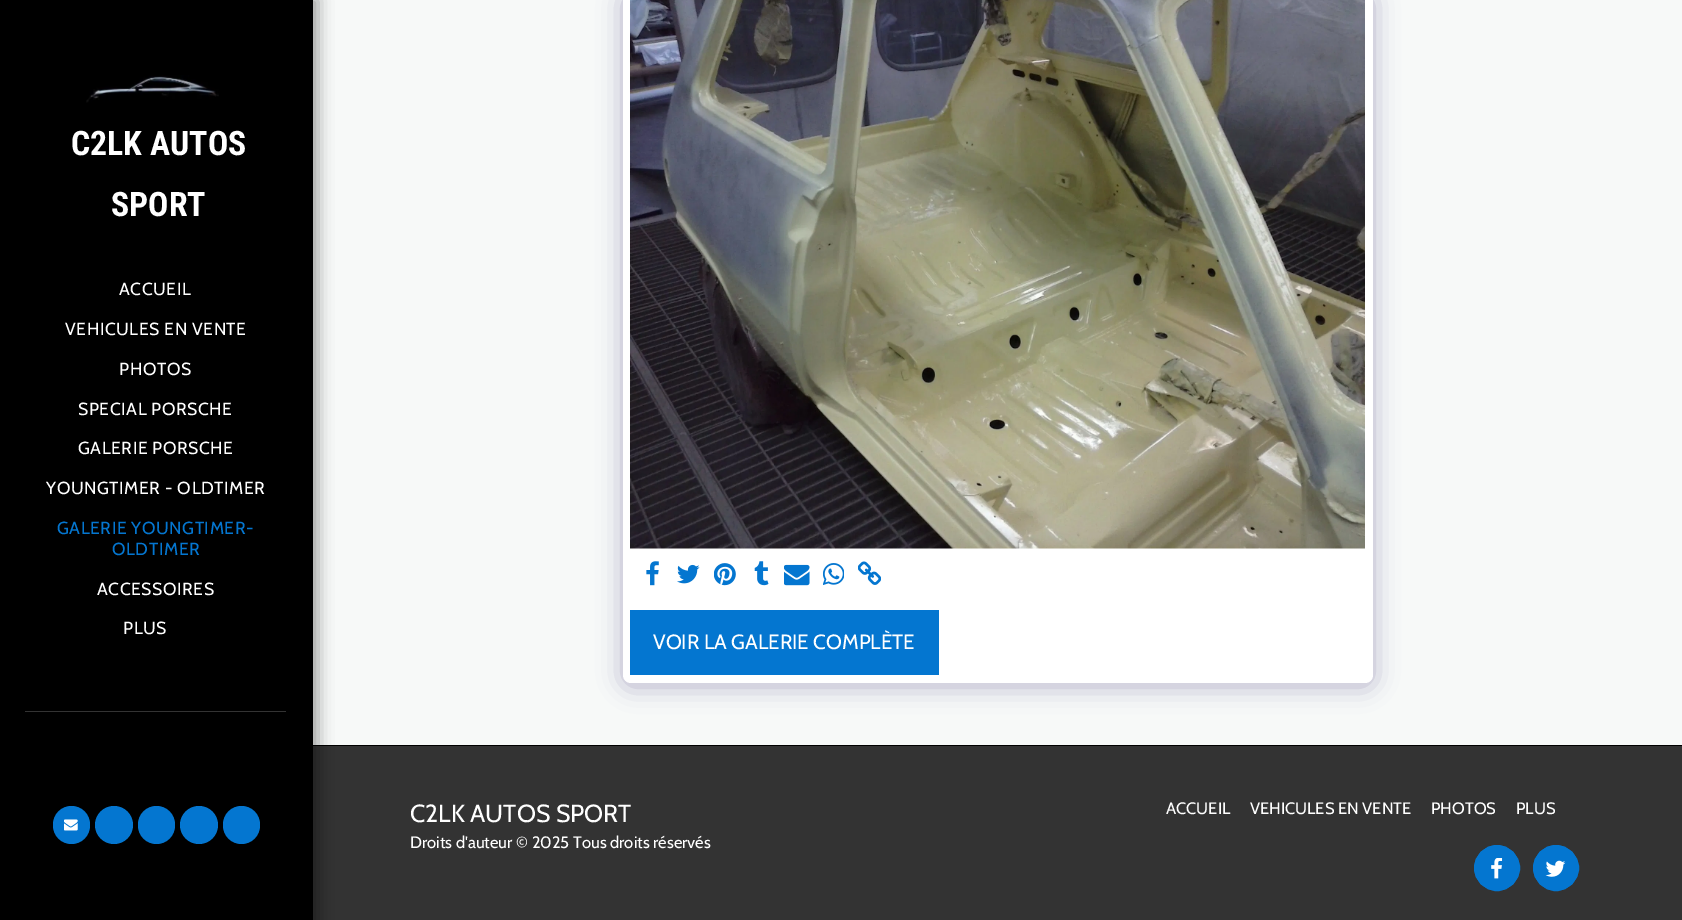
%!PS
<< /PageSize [1682 920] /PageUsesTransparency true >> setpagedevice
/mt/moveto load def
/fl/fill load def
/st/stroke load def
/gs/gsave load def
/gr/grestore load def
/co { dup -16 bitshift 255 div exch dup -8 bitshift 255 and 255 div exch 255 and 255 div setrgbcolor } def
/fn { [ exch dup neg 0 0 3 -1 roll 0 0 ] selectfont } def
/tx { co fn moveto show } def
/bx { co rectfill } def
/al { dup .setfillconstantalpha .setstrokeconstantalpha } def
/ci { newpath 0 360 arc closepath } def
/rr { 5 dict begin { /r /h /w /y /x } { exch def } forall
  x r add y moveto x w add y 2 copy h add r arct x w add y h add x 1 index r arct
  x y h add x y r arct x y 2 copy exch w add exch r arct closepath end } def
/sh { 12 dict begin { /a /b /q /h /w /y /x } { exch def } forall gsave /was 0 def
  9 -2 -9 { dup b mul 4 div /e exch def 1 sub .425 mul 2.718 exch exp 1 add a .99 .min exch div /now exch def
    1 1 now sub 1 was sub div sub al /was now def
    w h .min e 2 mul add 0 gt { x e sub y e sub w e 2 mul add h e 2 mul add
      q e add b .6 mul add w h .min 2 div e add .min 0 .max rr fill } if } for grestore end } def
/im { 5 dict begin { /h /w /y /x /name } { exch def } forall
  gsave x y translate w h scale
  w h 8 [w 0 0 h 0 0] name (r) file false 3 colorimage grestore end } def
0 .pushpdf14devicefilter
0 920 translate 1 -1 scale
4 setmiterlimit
0 0 1682 920 16#F7F9F8 bx
313 746 1369 174 16#333333 bx
313 745 1369 1 16#000000 bx
0 -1 318 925 0 7.5 .35 sh
0 0 313 920 16#000000 bx
(media/1.raw) 86 75 133 28 im
25 711 261 1 16#333333 bx
16#0476D0 co
53 806 37 38 18.5 rr fl
(media/2.raw) 64 819 14 12 im
114 825 19 ci fl
138 806 37 38 18.5 rr fl
199 825 19 ci fl
223 806 37 38 18.5 rr fl
16#4D3F7A co
623 -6 750 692 8 12.5 .4 sh
16#FFFFFF co
623 -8 750 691 8 rr fl
(media/3.raw) 630 0 735 549 im
(media/4.raw) 646 561 13 25 im
(media/5.raw) 677 564 23 20 im
(media/6.raw) 714 563 22 23 im
(media/7.raw) 754 561 15 25 im
(media/8.raw) 784 564 26 22 im
(media/9.raw) 823 563 21 22 im
(media/10.raw) 858 561 23 24 im
630 610 309 65 16#0476D0 bx
1497 868 22.5 ci gs fl gr
st
(media/11.raw) 1491 858 12 21 im
1556 868 22.5 ci gs fl gr
st
(media/12.raw) 1545 860 21 17 im
(C2LK AUTOS) 71 155 /RobotoCondensed-Bold 33.75 16#FFFFFF tx
(SPORT) 111 216 /RobotoCondensed-Bold 33.75 16#FFFFFF tx
/Cabin-Regular 17.5 fn
119 295 mt .6 0 (ACCUEIL) ashow
65 335 mt .6 0 (VEHICULES EN VENTE) ashow
119 375 mt .6 0 (PHOTOS) ashow
78 415 mt .6 0 (SPECIAL PORSCHE) ashow
78 454 mt .6 0 (GALERIE PORSCHE) ashow
46 494 mt .6 0 (YOUNGTIMER - OLDTIMER) ashow
16#0476D0 co
57 534 mt .6 0 (GALERIE YOUNGTIMER-) ashow
112 555 mt .6 0 (OLDTIMER) ashow
16#FFFFFF co
97 595 mt .6 0 (ACCESSOIRES) ashow
123 634 mt .6 0 (PLUS) ashow
(VOIR LA GALERIE COMPLÈTE) 653 649 /Cabin-Regular 20.6 16#FFFFFF tx
(C2LK AUTOS SPORT) 410 822 /Cabin-Regular 24.75 16#FFFFFF tx
(Droits d'auteur © 2025 Tous droits réservés) 410 848 /Cabin-Regular 16.5 16#FFFFFF tx
(ACCUEIL) 1166 814 /Cabin-Regular 16.5 16#FFFFFF tx
(VEHICULES EN VENTE) 1250 814 /Cabin-Regular 16.5 16#FFFFFF tx
(PHOTOS) 1431 814 /Cabin-Regular 16.5 16#FFFFFF tx
(PLUS) 1516 814 /Cabin-Regular 16.5 16#FFFFFF tx
.poppdf14devicefilter showpage
